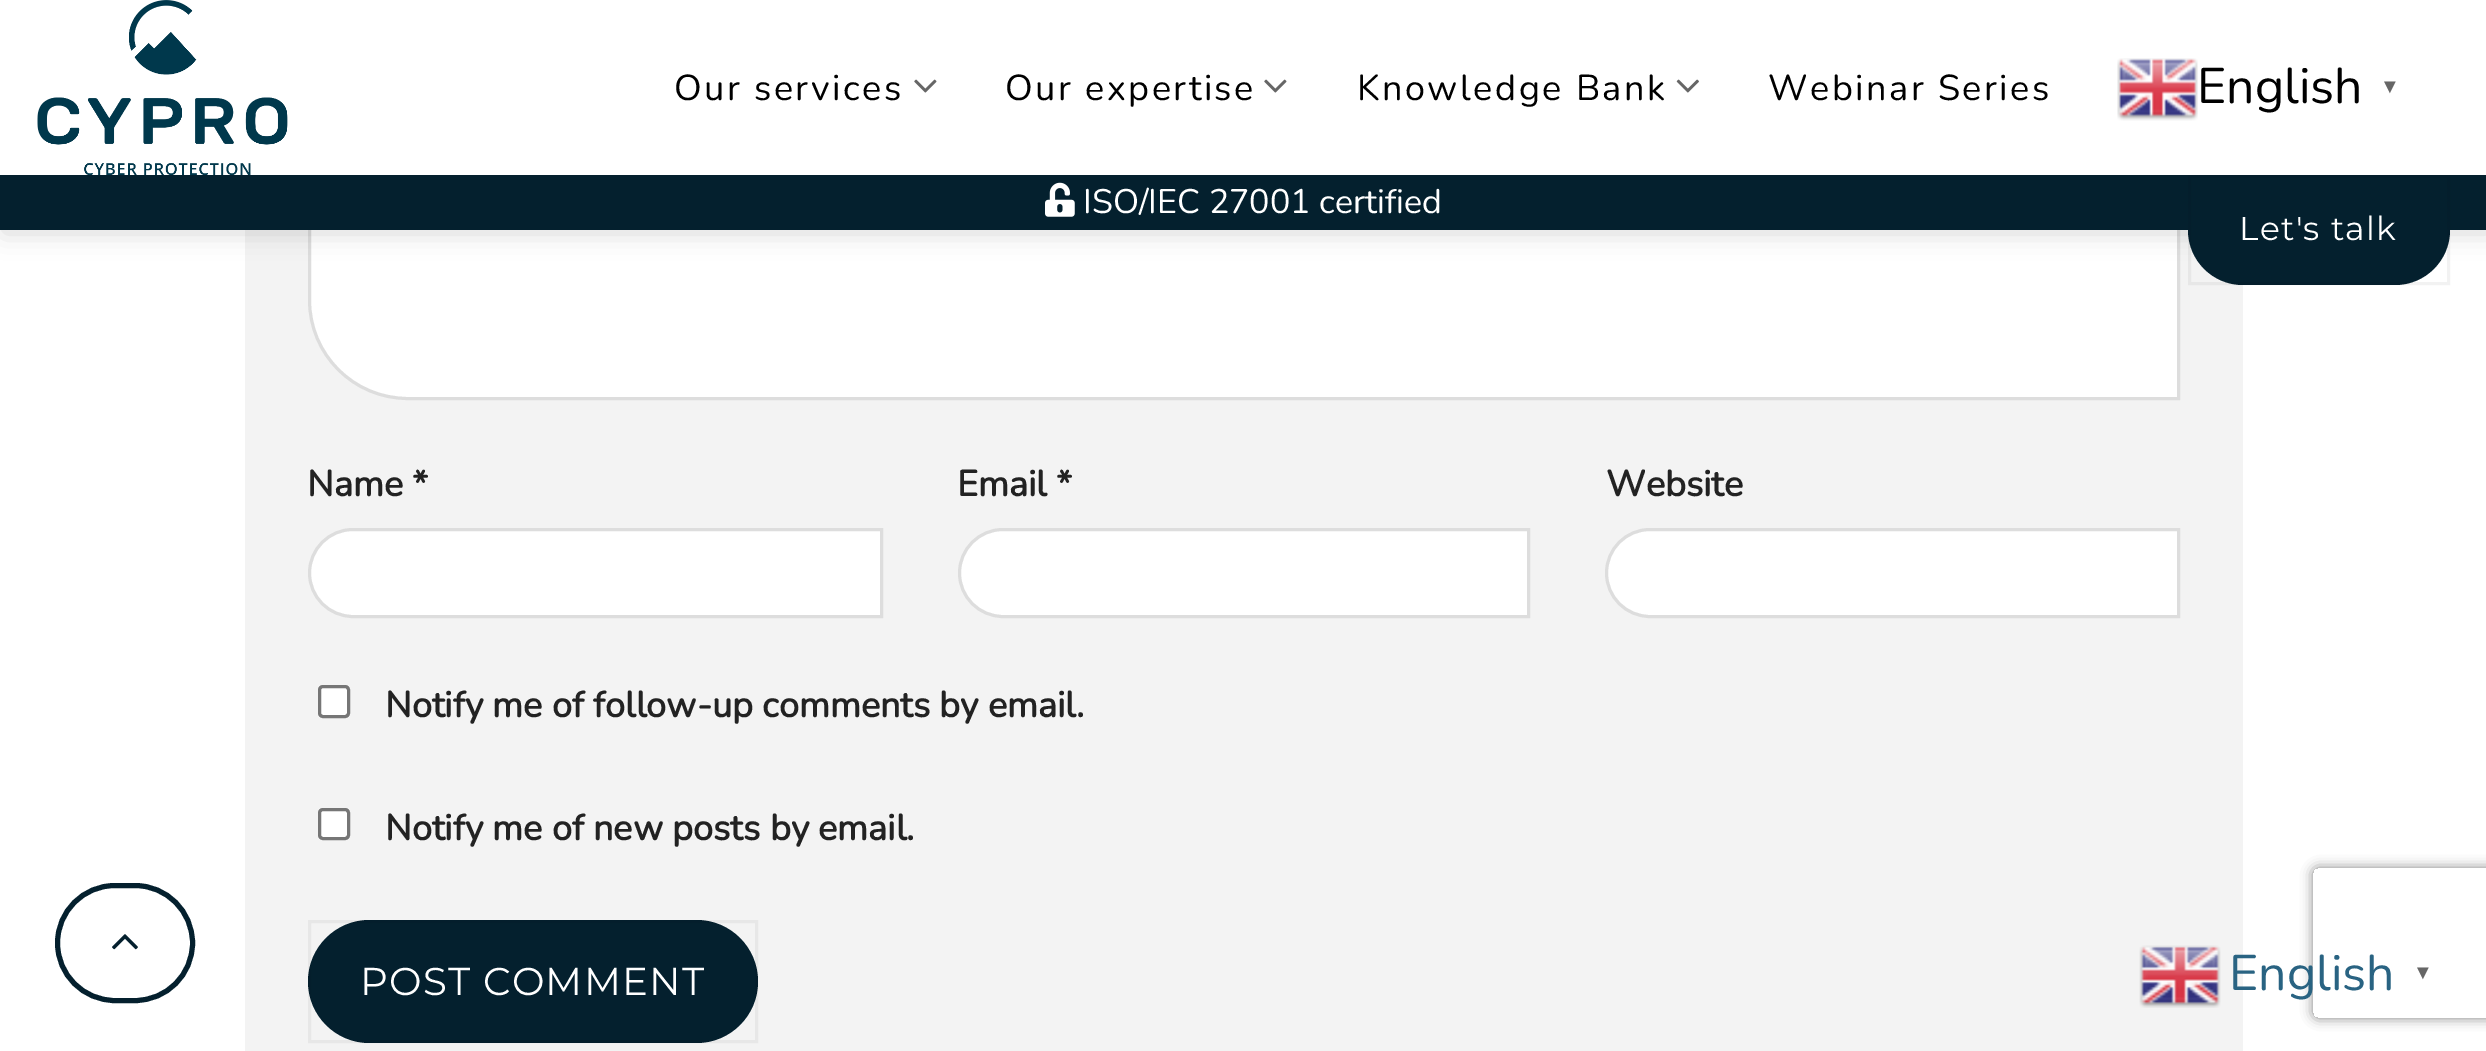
%!PS
<< /PageSize [2486 1051] /PageUsesTransparency true >> setpagedevice
/mt/moveto load def
/li/lineto load def
/ct/curveto load def
/cp/closepath load def
/fl/fill load def
/st/stroke load def
/gs/gsave load def
/gr/grestore load def
/lw/setlinewidth load def
/co { dup -16 bitshift 255 div exch dup -8 bitshift 255 and 255 div exch 255 and 255 div setrgbcolor } def
/fn { [ exch dup neg 0 0 3 -1 roll 0 0 ] selectfont } def
/tx { co fn moveto show } def
/bx { co rectfill } def
/al { dup .setfillconstantalpha .setstrokeconstantalpha } def
/rr { 5 dict begin { /r /h /w /y /x } { exch def } forall
  x r add y moveto x w add y 2 copy h add r arct x w add y h add x 1 index r arct
  x y h add x y r arct x y 2 copy exch w add exch r arct closepath end } def
/sh { 12 dict begin { /a /b /q /h /w /y /x } { exch def } forall gsave /was 0 def
  9 -2 -9 { dup b mul 4 div /e exch def 1 sub .425 mul 2.718 exch exp 1 add a .99 .min exch div /now exch def
    1 1 now sub 1 was sub div sub al /was now def
    w h .min e 2 mul add 0 gt { x e sub y e sub w e 2 mul add h e 2 mul add
      q e add b .6 mul add w h .min 2 div e add .min 0 .max rr fill } if } for grestore end } def
/im { 5 dict begin { /h /w /y /x /name } { exch def } forall
  gsave x y translate w h scale
  w h 8 [w 0 0 h 0 0] name (r) file false 3 colorimage grestore end } def
0 .pushpdf14devicefilter
0 1051 translate 1 -1 scale
4 setmiterlimit
0 0 2486 1051 16#FFFFFF bx
245 230 1998 821 16#F3F3F3 bx
16#FFFFFF co
408 101.5 mt 2178.5 101.5 li 2178.5 398.5 li 408 398.5 li 353.5 398.5 309.5 354.5 309.5 300 ct 309.5 200 li 309.5 145.5 353.5 101.5 408 101.5 ct cp gs fl gr
16#DDDDDD co
3 lw
st
16#000000 co
3 3 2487 230 0 12.5 .15 sh
0 0 2486 175 16#FFFFFF bx
(media/1.raw) 37 0 251 175 im
(media/2.raw) 914 79 23 14 im
(media/2.raw) 1264 79 23 14 im
(media/3.raw) 1676 79 23 14 im
(media/4.raw) 2117 58 81 63 im
0 175 2486 55 16#04202E bx
2188 175 262 110 55 rr fl
0.05 al
16#000000 co
2189.5 176.5 259 107 rectstroke
1 al
(media/5.raw) 1045 182 30 35 im
16#04202E co
5 lw
57.5 885.5 135 115 57.5 rr st
(media/6.raw) 112 934 26 16 im
16#FFFFFF co
353 529.5 mt 881.5 529.5 li 881.5 616.5 li 353 616.5 li 329 616.5 309.5 597 309.5 573 ct 309.5 549 329 529.5 353 529.5 ct cp gs fl gr
16#DDDDDD co
3 lw
st
16#FFFFFF co
1003 529.5 mt 1528.5 529.5 li 1528.5 616.5 li 1003 616.5 li 979 616.5 959.5 597 959.5 573 ct 959.5 549 979 529.5 1003 529.5 ct cp gs fl gr
16#DDDDDD co
st
16#FFFFFF co
1650 529.5 mt 2178.5 529.5 li 2178.5 616.5 li 1650 616.5 li 1626 616.5 1606.5 597 1606.5 573 ct 1606.5 549 1626 529.5 1650 529.5 ct cp gs fl gr
16#DDDDDD co
st
16#FFFFFF co
319.5 686.5 29 30 3.5 rr gs fl gr
16#767676 co
st
16#FFFFFF co
319.5 809.5 29 29 3.5 rr gs fl gr
16#767676 co
st
16#04202E co
308 920 450 123 61.5 rr fl
0.05 al
16#000000 co
309.5 921.5 447 120 rectstroke
gs
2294 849 mt 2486 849 li 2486 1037 li 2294 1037 li cp 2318 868 mt 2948 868 li 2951 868 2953 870 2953 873 ct 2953 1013 li 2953 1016 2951 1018 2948 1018 ct 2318 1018 li 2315 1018 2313 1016 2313 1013 ct 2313 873 li 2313 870 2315 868 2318 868 ct cp eoclip newpath
1 al
16#808080 co
2313 868 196 150 5 6 1 sh
gr
1 al
(media/7.raw) 2139 945 82 63 im
/Nunito-ExtraLight 36 fn
674 100 mt 2.5 0 (Our services) ashow
1005 100 mt 2.5 0 (Our expertise) ashow
1357 100 mt 2.5 0 (Knowledge Bank) ashow
1768 100 mt 2.5 0 (Webinar Series) ashow
(English) 2197 103 /Nunito-ExtraLight 50 16#000000 tx
(▼) 2380 93 /LiberationSans-Bold 20 16#666666 tx
/Montserrat-Thin 33 fn
16#FFFFFF co
2239 240 mt 1.25 0 (Let's talk) ashow
(ISO/IEC 27001 certified) 1083 213 /Nunito-ExtraLight 34 16#FFFFFF tx
(Name *) 307 496 /Nunito-Bold 36 16#222222 tx
(Email *) 957 496 /Nunito-Bold 36 16#222222 tx
(Website) 1606 496 /Nunito-Bold 36 16#222222 tx
(Notify me of follow-up comments by email.) 385 717 /Nunito-Bold 36 16#222222 tx
(Notify me of new posts by email.) 385 840 /Nunito-Bold 36 16#222222 tx
/Montserrat-Thin 38.75 fn
16#FFFFFF co
360 995 mt 1.25 0 (POST COMMENT) ashow
(English) 2229 990 /Nunito-ExtraLight 50 16#296382 tx
(▼) 2413 979 /LiberationSans-Bold 20 16#666666 tx
.poppdf14devicefilter showpage
